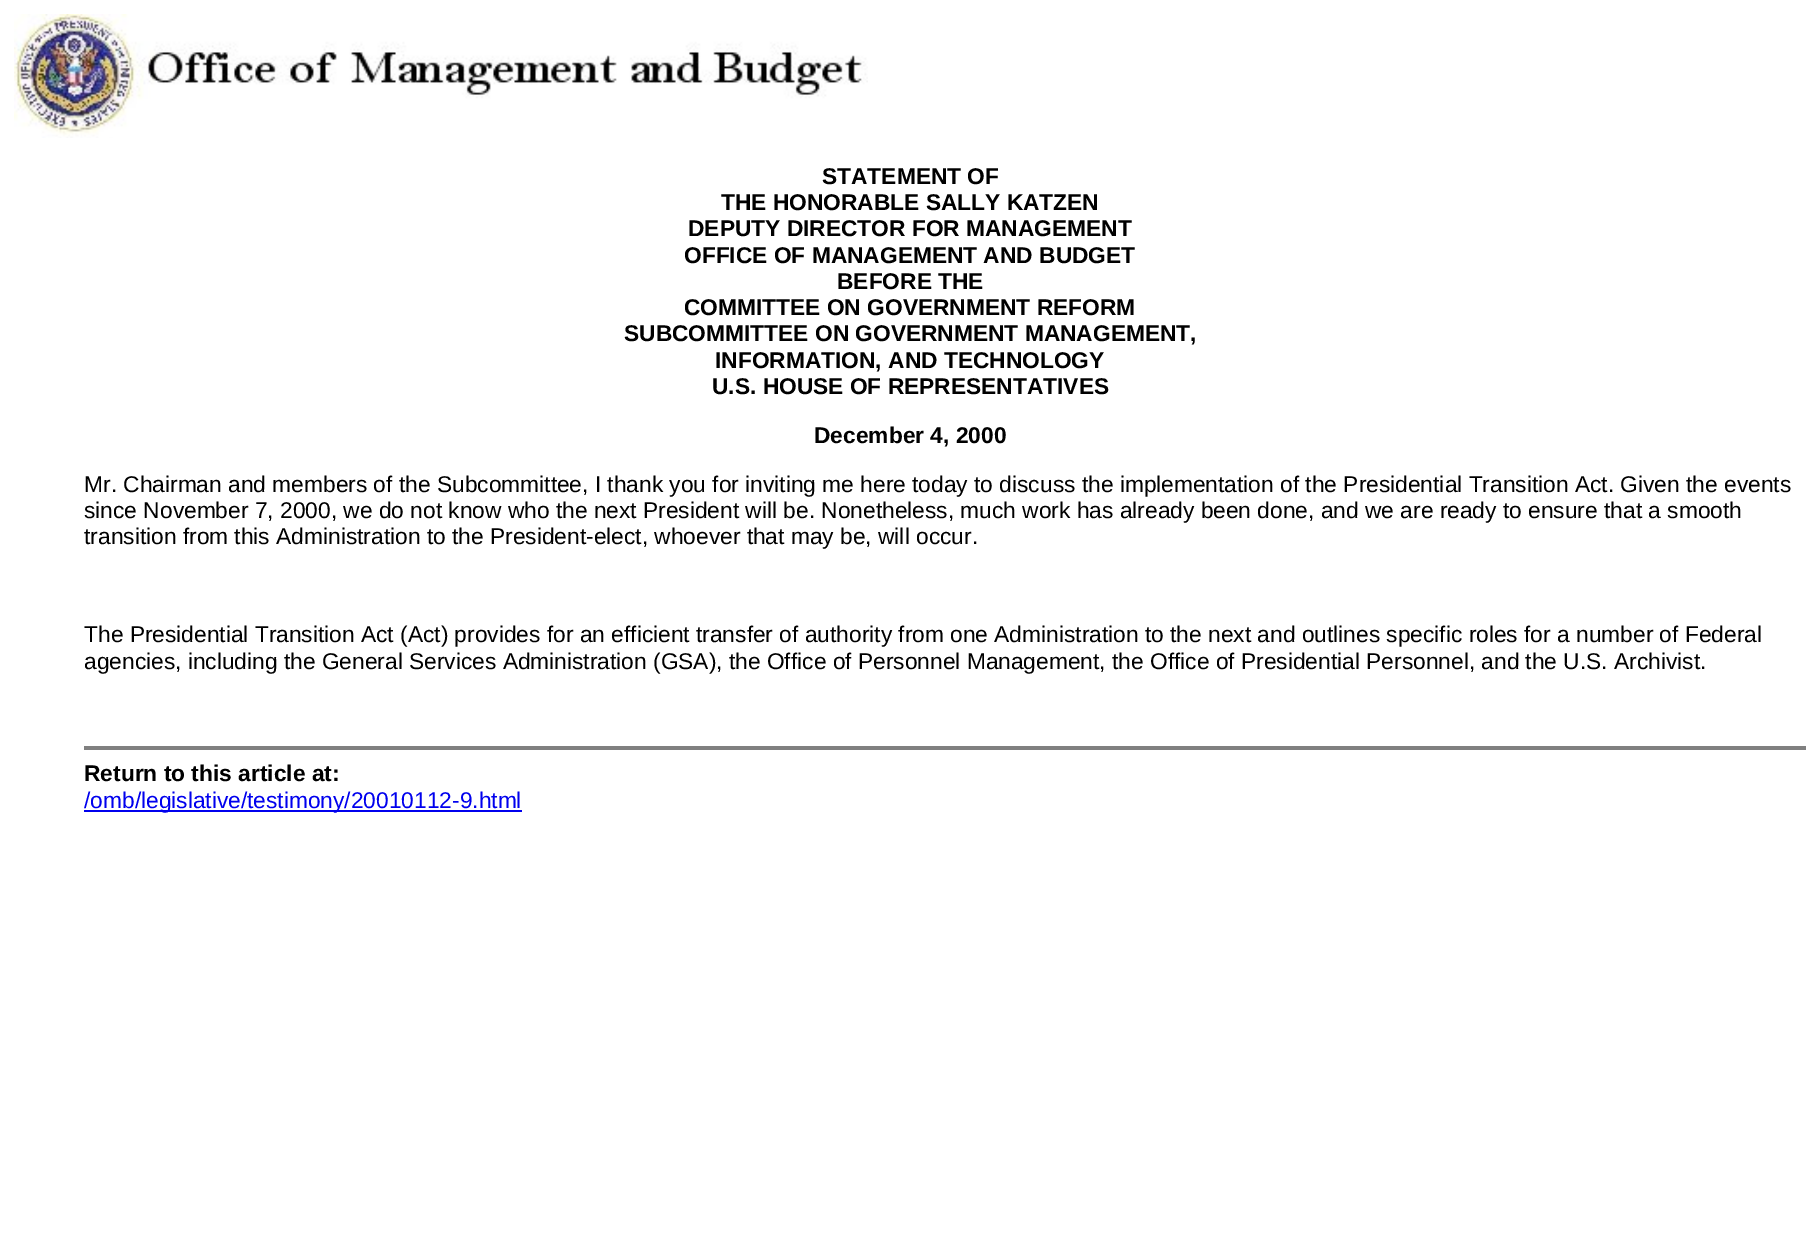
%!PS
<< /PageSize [1820 1246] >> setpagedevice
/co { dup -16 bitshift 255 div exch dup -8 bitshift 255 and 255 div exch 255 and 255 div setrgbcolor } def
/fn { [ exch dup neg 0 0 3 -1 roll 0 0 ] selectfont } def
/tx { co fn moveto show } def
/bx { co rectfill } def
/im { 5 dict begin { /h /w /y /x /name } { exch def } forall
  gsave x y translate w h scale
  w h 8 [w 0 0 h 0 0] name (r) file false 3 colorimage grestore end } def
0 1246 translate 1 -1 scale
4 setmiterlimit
0 0 1820 1246 16#FFFFFF bx
(media/1.raw) 14 14 854 124 im
84 746 1722 4 16#808080 bx
84 810 438 2 16#0000EE bx
(STATEMENT OF) 822 184 /LiberationSans-Bold 22.75 16#000000 tx
(THE HONORABLE SALLY KATZEN) 721 210 /LiberationSans-Bold 22.75 16#000000 tx
(DEPUTY DIRECTOR FOR MANAGEMENT) 688 236 /LiberationSans-Bold 22.75 16#000000 tx
(OFFICE OF MANAGEMENT AND BUDGET) 684 263 /LiberationSans-Bold 22.75 16#000000 tx
(BEFORE THE) 837 289 /LiberationSans-Bold 22.75 16#000000 tx
(COMMITTEE ON GOVERNMENT REFORM) 684 315 /LiberationSans-Bold 22.75 16#000000 tx
(SUBCOMMITTEE ON GOVERNMENT MANAGEMENT,) 624 341 /LiberationSans-Bold 22.75 16#000000 tx
(INFORMATION, AND TECHNOLOGY) 715 368 /LiberationSans-Bold 22.75 16#000000 tx
(U.S. HOUSE OF REPRESENTATIVES) 712 394 /LiberationSans-Bold 22.75 16#000000 tx
(December 4, 2000) 814 443 /LiberationSans-Bold 22.75 16#000000 tx
(Mr. Chairman and members of the Subcommittee, I thank you for inviting me here today to discuss the implementation of the Presidential Transition Act. Given the events) 84 492 /LiberationSans-Regular 22.75 16#000000 tx
(since November 7, 2000, we do not know who the next President will be. Nonetheless, much work has already been done, and we are ready to ensure that a smooth) 84 518 /LiberationSans-Regular 22.75 16#000000 tx
(transition from this Administration to the President-elect, whoever that may be, will occur.) 84 544 /LiberationSans-Regular 22.75 16#000000 tx
(The Presidential Transition Act \(Act\) provides for an efficient transfer of authority from one Administration to the next and outlines specific roles for a number of Federal) 84 642 /LiberationSans-Regular 22.75 16#000000 tx
(agencies, including the General Services Administration \(GSA\), the Office of Personnel Management, the Office of Presidential Personnel, and the U.S. Archivist.) 84 669 /LiberationSans-Regular 22.75 16#000000 tx
(Return to this article at:) 84 781 /LiberationSans-Bold 22.75 16#000000 tx
(/omb/legislative/testimony/20010112-9.html) 84 808 /LiberationSans-Regular 22.75 16#0000EE tx
showpage
